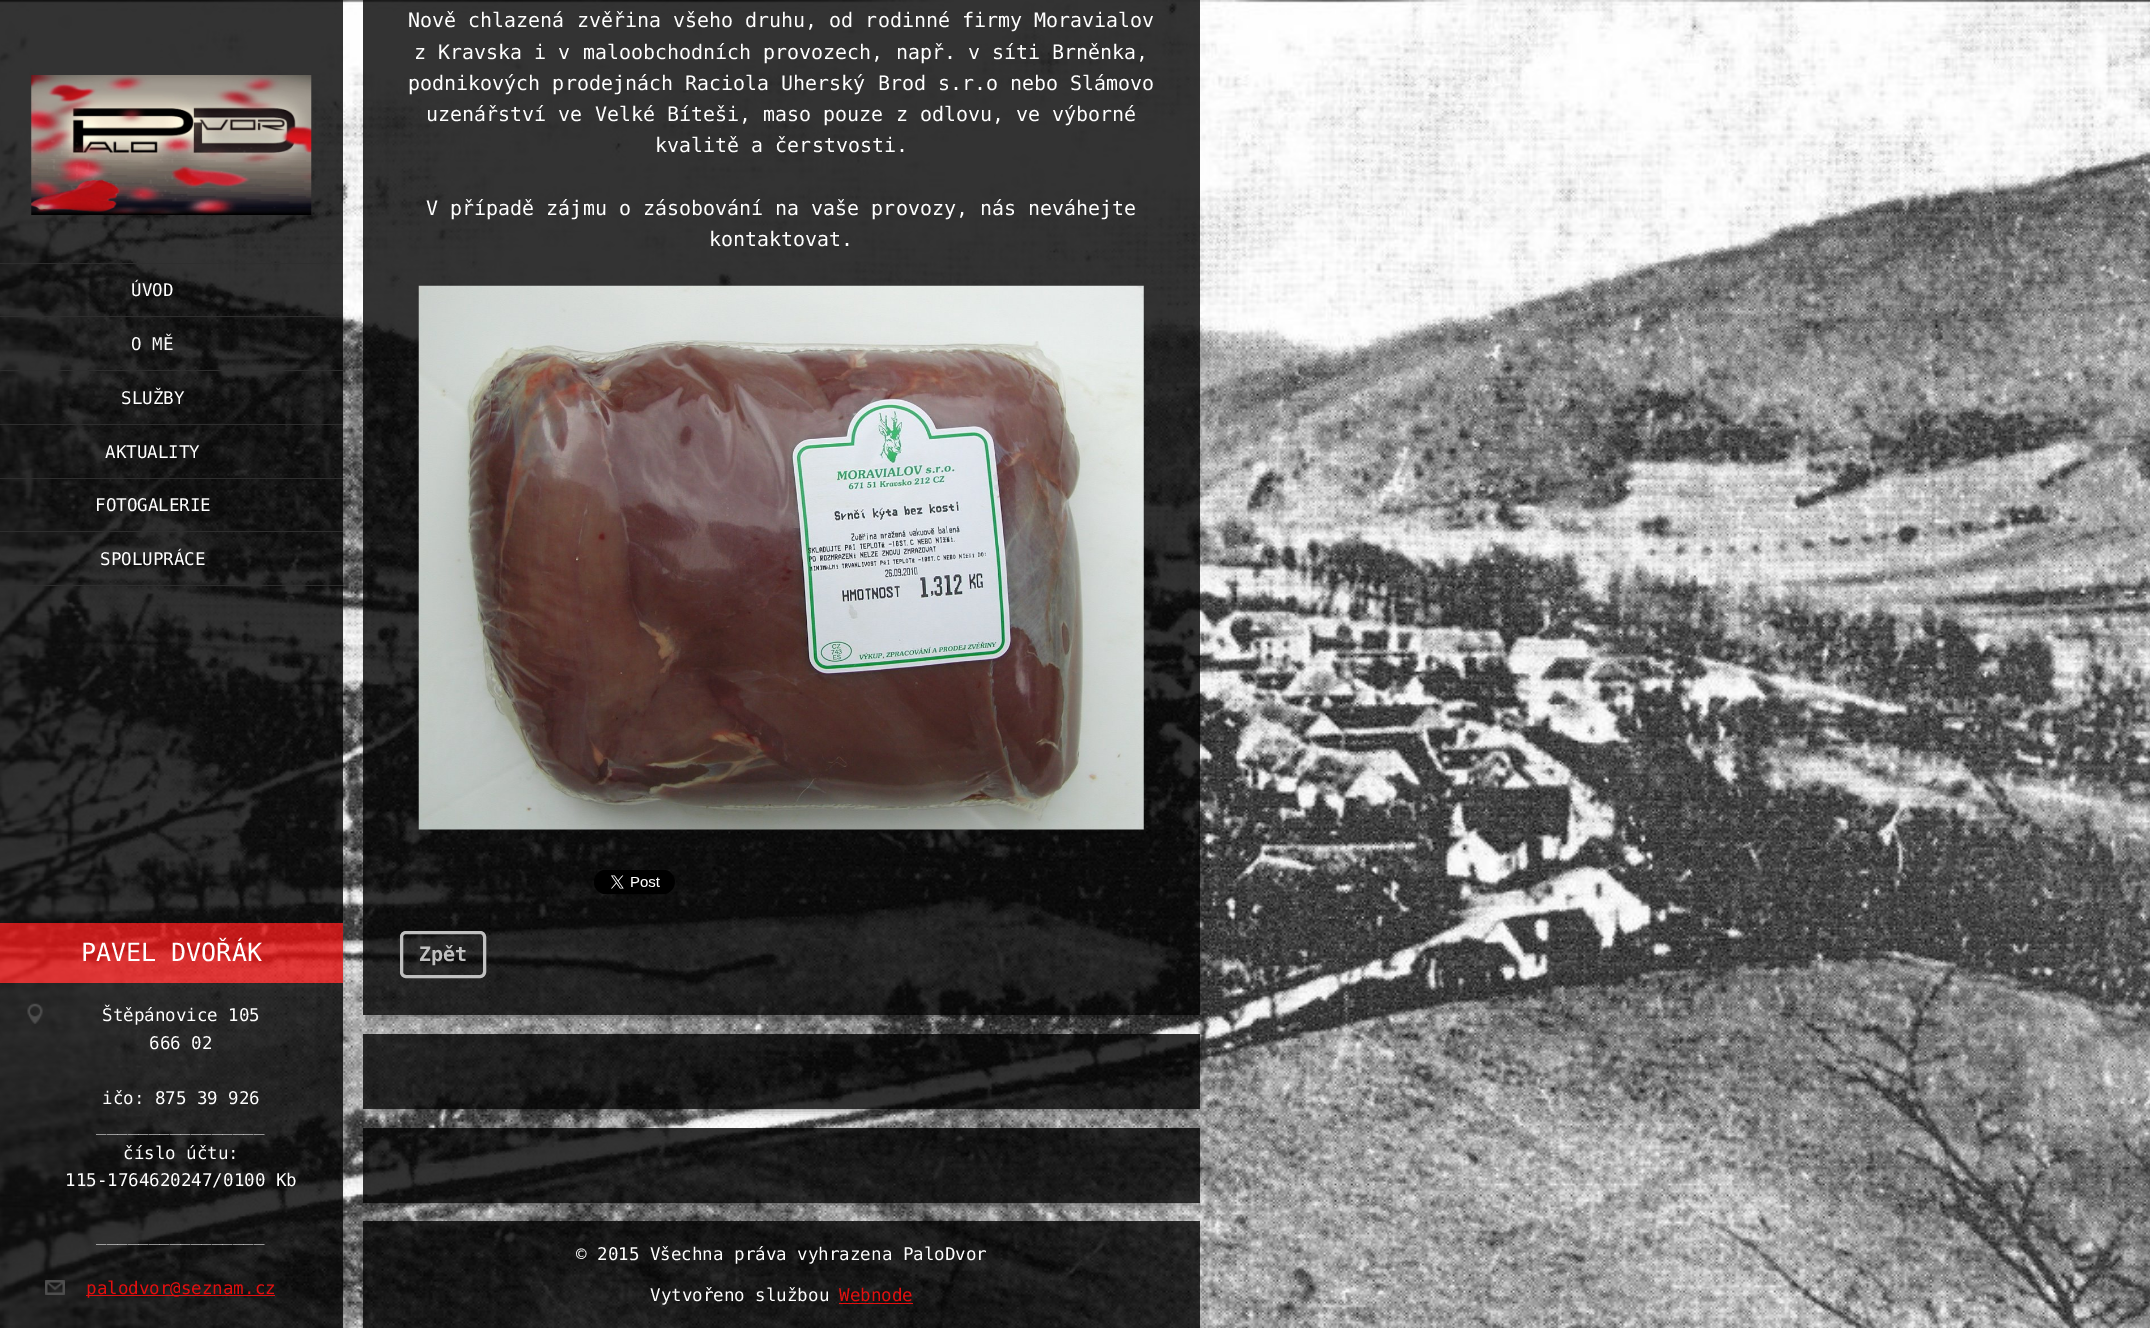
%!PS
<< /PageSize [2150 1328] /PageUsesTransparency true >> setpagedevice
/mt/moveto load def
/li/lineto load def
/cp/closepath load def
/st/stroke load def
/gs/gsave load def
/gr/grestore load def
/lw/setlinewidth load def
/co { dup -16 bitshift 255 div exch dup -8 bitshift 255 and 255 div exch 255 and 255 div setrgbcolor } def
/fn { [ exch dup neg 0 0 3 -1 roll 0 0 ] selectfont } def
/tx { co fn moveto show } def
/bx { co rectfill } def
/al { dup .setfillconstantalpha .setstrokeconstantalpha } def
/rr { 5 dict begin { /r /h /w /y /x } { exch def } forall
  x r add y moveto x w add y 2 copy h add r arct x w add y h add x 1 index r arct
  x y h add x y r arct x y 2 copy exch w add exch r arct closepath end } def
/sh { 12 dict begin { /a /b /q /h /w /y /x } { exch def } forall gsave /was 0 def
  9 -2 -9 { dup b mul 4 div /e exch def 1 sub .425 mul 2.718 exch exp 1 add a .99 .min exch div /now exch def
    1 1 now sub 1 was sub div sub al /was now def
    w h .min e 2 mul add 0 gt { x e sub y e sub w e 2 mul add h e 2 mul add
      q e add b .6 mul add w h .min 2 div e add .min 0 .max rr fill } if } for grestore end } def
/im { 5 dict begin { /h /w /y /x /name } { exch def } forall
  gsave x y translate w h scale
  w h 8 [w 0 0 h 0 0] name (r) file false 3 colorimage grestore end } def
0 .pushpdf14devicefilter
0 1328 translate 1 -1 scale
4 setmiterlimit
0 0 2150 1328 16#FFFFFF bx
(media/1.raw) 0 0 2150 1328 im
0.8 al
0 0 343 231 16#000000 bx
1 al
(media/2.raw) 31 75 281 140 im
0.8 al
0 231 343 32 16#000000 bx
0 264 343 321 16#000000 bx
1 al
0 263 343 1 16#2E2E2E bx
0 316 343 1 16#2E2E2E bx
0 370 343 1 16#2E2E2E bx
0 424 343 1 16#2E2E2E bx
0 478 343 1 16#2E2E2E bx
0 531 343 1 16#2E2E2E bx
0 585 343 1 16#2E2E2E bx
0.8 al
0 586 343 337 16#000000 bx
0 923 343 60 16#E20F0F bx
0 983 343 345 16#000000 bx
1 al
(media/3.raw) 27 1003 16 21 im
(media/4.raw) 45 1280 20 15 im
86 1295 189 1 16#E20F0F bx
gs
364 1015 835 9 rectclip
16#000000 co
370 -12 823 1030 0 4 .35 sh
gr
0.8 al
363 0 837 870 16#000000 bx
1 al
(media/5.raw) 418 285 726 545 im
0.8 al
363 870 837 145 16#000000 bx
1 al
(media/6.raw) 594 870 81 25 im
16#C0C0C0 co
3 lw
401.5 932.5 83 44 4.5 rr st
gs
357 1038 mt 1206 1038 li 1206 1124 li 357 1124 li cp 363 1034 mt 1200 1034 li 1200 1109 li 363 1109 li cp eoclip newpath
16#000000 co
370 1051 823 60 0 4 .35 sh
gr
0.8 al
363 1034 837 37 16#000000 bx
363 1071 837 38 16#000000 bx
gs
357 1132 mt 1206 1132 li 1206 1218 li 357 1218 li cp 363 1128 mt 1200 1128 li 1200 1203 li 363 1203 li cp eoclip newpath
1 al
370 1145 823 60 0 4 .35 sh
gr
363 1128 837 37 16#000000 bx
363 1165 837 38 16#000000 bx
363 1221 837 107 16#000000 bx
1 al
839 1303 74 1 16#E20F0F bx
(ÚVOD) 131 296 /DejaVuSansMono-Regular 17.5 16#FFFFFF tx
(O MĚ) 131 350 /DejaVuSansMono-Regular 17.5 16#FFFFFF tx
(SLUŽBY) 121 404 /DejaVuSansMono-Regular 17.5 16#FFFFFF tx
(AKTUALITY) 105 458 /DejaVuSansMono-Regular 17.5 16#FFFFFF tx
(FOTOGALERIE) 95 511 /DejaVuSansMono-Regular 17.5 16#FFFFFF tx
(SPOLUPRÁCE) 100 565 /DejaVuSansMono-Regular 17.5 16#FFFFFF tx
(PAVEL DVOŘÁK) 81 961 /DejaVuSansMono-Regular 25 16#FFFFFF tx
(Štěpánovice 105) 102 1021 /DejaVuSansMono-Regular 17.5 16#FFFFFF tx
(666 02) 149 1049 /DejaVuSansMono-Regular 17.5 16#FFFFFF tx
(ičo: 875 39 926) 102 1104 /DejaVuSansMono-Regular 17.5 16#FFFFFF tx
(________________) 96 1131 /DejaVuSansMono-Regular 17.5 16#FFFFFF tx
(číslo účtu:) 123 1159 /DejaVuSansMono-Regular 17.5 16#FFFFFF tx
(115-1764620247/0100 Kb) 65 1186 /DejaVuSansMono-Regular 17.5 16#FFFFFF tx
(________________) 96 1241 /DejaVuSansMono-Regular 17.5 16#FFFFFF tx
(palodvor@seznam.cz) 86 1294 /DejaVuSansMono-Regular 17.5 16#E20F0F tx
(Nově chlazená zvěřina všeho druhu, od rodinné firmy Moravialov) 408 27 /DejaVuSansMono-Regular 20 16#FFFFFF tx
(z Kravska i v maloobchodních provozech, např. v síti Brněnka,) 414 59 /DejaVuSansMono-Regular 20 16#FFFFFF tx
(podnikových prodejnách Raciola Uherský Brod s.r.o nebo Slámovo) 408 90 /DejaVuSansMono-Regular 20 16#FFFFFF tx
(uzenářství ve Velké Bíteši, maso pouze z odlovu, ve výborné) 426 121 /DejaVuSansMono-Regular 20 16#FFFFFF tx
(kvalitě a čerstvosti.) 655 152 /DejaVuSansMono-Regular 20 16#FFFFFF tx
(V případě zájmu o zásobování na vaše provozy, nás neváhejte) 426 215 /DejaVuSansMono-Regular 20 16#FFFFFF tx
(kontaktovat.) 709 246 /DejaVuSansMono-Regular 20 16#FFFFFF tx
(Zpět) 419 961 /DejaVuSansMono-Bold 20 16#C0C0C0 tx
(© 2015 Všechna práva vyhrazena PaloDvor) 576 1260 /DejaVuSansMono-Regular 17.5 16#FFFFFF tx
(Vytvořeno službou) 650 1301 /DejaVuSansMono-Regular 17.5 16#FFFFFF tx
(Webnode) 839 1301 /DejaVuSansMono-Regular 17.5 16#E20F0F tx
.poppdf14devicefilter showpage
